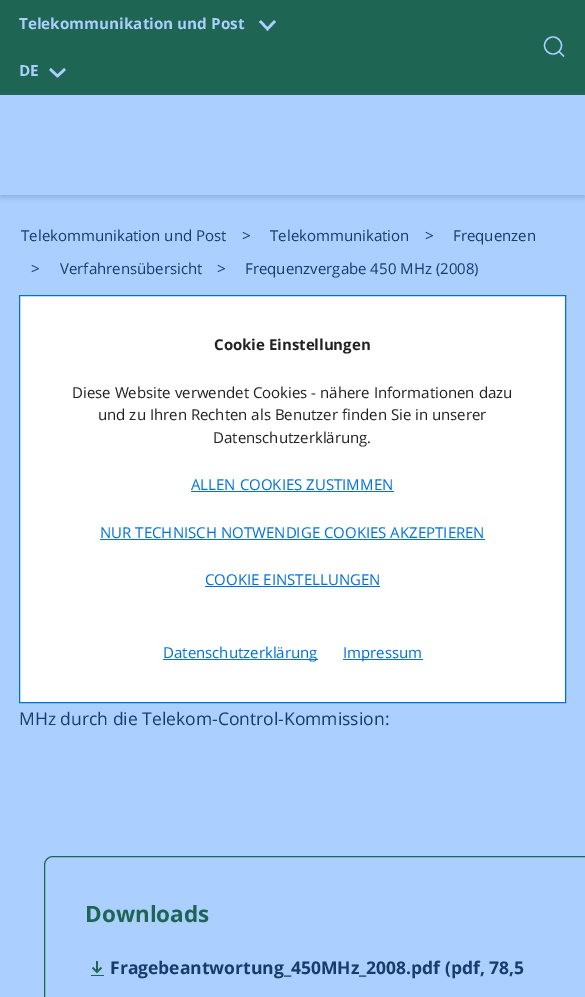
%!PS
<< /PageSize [585 997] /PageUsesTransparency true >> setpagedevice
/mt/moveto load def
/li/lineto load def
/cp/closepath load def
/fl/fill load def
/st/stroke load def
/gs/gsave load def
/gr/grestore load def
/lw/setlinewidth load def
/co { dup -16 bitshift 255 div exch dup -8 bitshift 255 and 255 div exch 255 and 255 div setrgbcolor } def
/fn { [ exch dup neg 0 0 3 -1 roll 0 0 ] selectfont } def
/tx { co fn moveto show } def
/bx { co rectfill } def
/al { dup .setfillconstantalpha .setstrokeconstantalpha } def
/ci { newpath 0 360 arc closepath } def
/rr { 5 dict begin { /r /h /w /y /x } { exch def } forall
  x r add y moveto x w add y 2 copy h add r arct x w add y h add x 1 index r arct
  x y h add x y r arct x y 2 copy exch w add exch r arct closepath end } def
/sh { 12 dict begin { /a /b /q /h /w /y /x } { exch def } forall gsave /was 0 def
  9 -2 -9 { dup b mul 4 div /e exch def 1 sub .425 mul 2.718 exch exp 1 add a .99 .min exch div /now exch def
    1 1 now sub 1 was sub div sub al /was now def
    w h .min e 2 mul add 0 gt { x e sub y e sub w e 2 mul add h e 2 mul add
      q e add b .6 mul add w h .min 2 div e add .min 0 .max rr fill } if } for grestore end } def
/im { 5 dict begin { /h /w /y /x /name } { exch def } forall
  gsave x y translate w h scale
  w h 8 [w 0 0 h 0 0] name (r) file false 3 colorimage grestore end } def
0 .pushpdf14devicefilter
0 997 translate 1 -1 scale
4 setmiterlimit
0 0 585 997 16#ABD0FF bx
0 0 585 95 16#1F6554 bx
16#ABD0FF co
2.5 lw
275 21 mt 267.5 29 li 260 21 li st
65 69 mt 57.5 76 li 50 69 li st
1.3 lw
553 45.5 8.5 ci st
559 51.5 mt 564 56.5 li cp st
gs
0 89 mt 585 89 li 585 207 li 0 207 li cp 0 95 mt 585 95 li 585 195 li 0 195 li cp eoclip newpath
16#7398C7 co
0 98 585 100 0 2.5 .5 sh
gr
16#1F6554 co
1 lw
44.5 856.5 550 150 8.5 rr st
(media/1.raw) 91 961 13 15 im
16#FFFFFF co
19.5 295.5 mt 565.5 295.5 li 565.5 702.5 li 19.5 702.5 li cp gs fl gr
16#0071D7 co
st
191 491 203 1 16#0071D7 bx
100 539 385 1 16#0071D7 bx
205 586 175 1 16#0071D7 bx
163 659 155 1 16#0071D7 bx
343 659 80 1 16#0071D7 bx
(Telekommunikation und Post) 19 29 /OpenSans-Bold 15.25 16#ABD0FF tx
(DE) 19 76 /OpenSans-Bold 15.25 16#ABD0FF tx
(Telekommunikation und Post) 21 241 /OpenSans-Regular 15 16#173C6B tx
(>) 242 241 /OpenSans-Regular 15.25 16#173C6B tx
(Telekommunikation) 270 241 /OpenSans-Regular 15 16#173C6B tx
(>) 425 241 /OpenSans-Regular 15.25 16#173C6B tx
(Frequenzen) 453 241 /OpenSans-Regular 15 16#173C6B tx
(>) 31 274 /OpenSans-Regular 15.25 16#173C6B tx
(Verfahrensübersicht) 60 274 /OpenSans-Regular 15 16#173C6B tx
(>) 217 274 /OpenSans-Regular 15.25 16#173C6B tx
(Frequenzvergabe 450 MHz \(2008\)) 245 274 /OpenSans-Regular 15 16#173C6B tx
(MHz durch die Telekom-Control-Kommission:) 19 725 /OpenSans-Regular 17.5 16#173C6B tx
(Downloads) 85 922 /OpenSans-Bold 22.5 16#1F6554 tx
(Fragebeantwortung_450MHz_2008.pdf \(pdf, 78,5) 110 974 /OpenSans-Bold 17.5 16#173C6B tx
(Cookie Einstellungen) 214 350 /OpenSans-Bold 15 16#222222 tx
(Diese Website verwendet Cookies - nähere Informationen dazu) 72 398 /OpenSans-Regular 15 16#222222 tx
(und zu Ihren Rechten als Benutzer finden Sie in unserer) 98 420 /OpenSans-Regular 15 16#222222 tx
(Datenschutzerklärung.) 213 443 /OpenSans-Regular 15 16#222222 tx
(ALLEN COOKIES ZUSTIMMEN) 191 490 /OpenSans-Regular 15 16#0071D7 tx
(NUR TECHNISCH NOTWENDIGE COOKIES AKZEPTIEREN) 100 538 /OpenSans-Regular 15 16#0071D7 tx
(COOKIE EINSTELLUNGEN) 205 585 /OpenSans-Regular 15 16#0071D7 tx
(Datenschutzerklärung) 163 658 /OpenSans-Regular 15 16#0071D7 tx
(Impressum) 343 658 /OpenSans-Regular 15 16#0071D7 tx
.poppdf14devicefilter showpage
